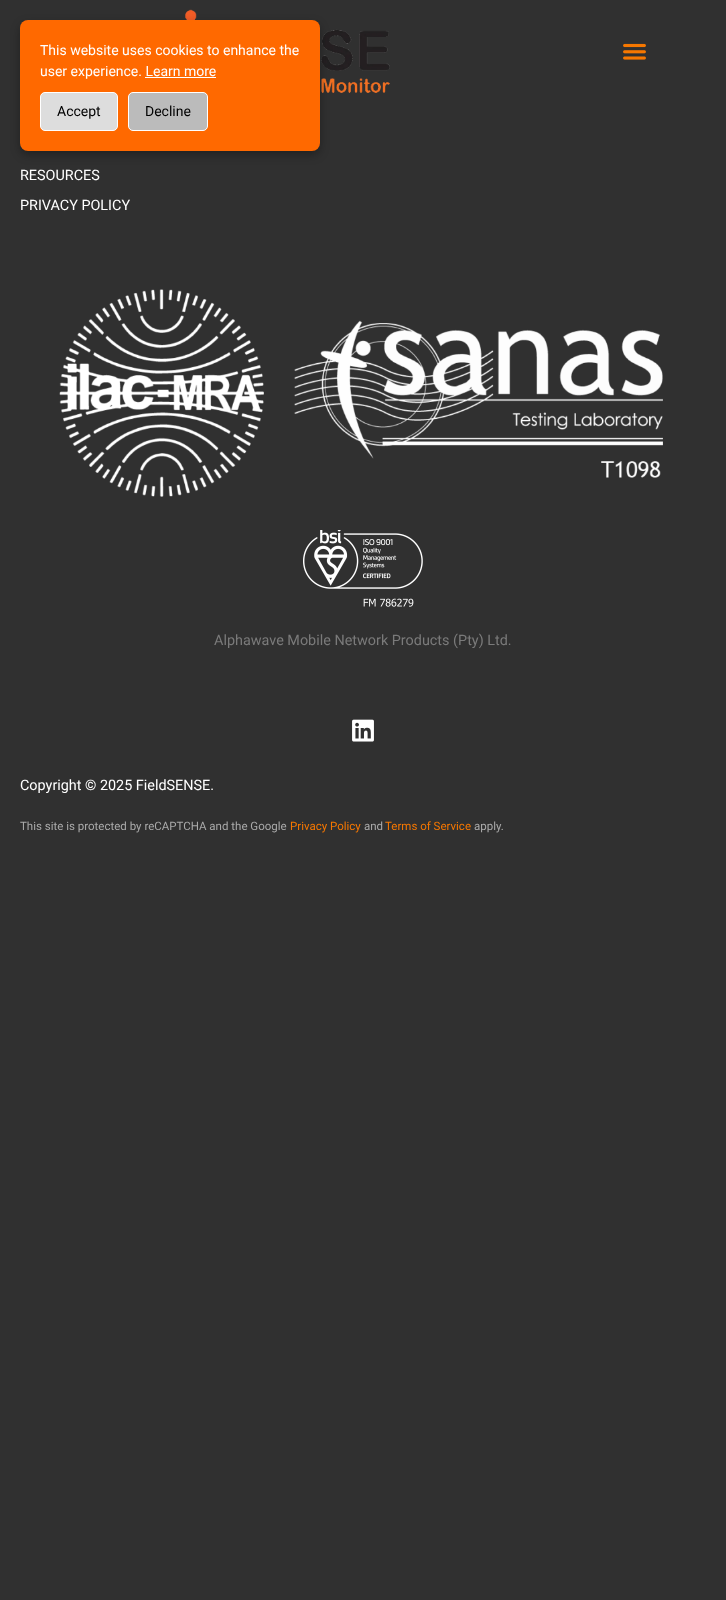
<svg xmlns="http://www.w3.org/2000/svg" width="726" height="1600">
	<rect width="100%" height="100%" fill="#303030" />
	<image x="185" y="9" width="205" height="84" href="assets/img1.png" />
	<rect x="20" y="24" width="300" height="131" rx="8" fill="#000000" fill-opacity="0.3" filter="blur(5px)" />
	<rect x="20" y="20" width="300" height="131" rx="8" fill="#FF6900" />
	<g font-family="Roboto" font-size="14" fill="#FFFFFF">
		<text x="40" y="55">This website uses cookies to enhance the</text>
		<text x="40" y="76">user experience. Learn more</text>
	</g>
	<rect x="145" y="77" width="71" height="1" fill="#FFFFFF" />
	<rect x="40.5" y="92.5" width="77" height="38" rx="4.5" fill="#DDDDDD" stroke="#FFFFFF" />
	<text x="57" y="116" font-family="Roboto" font-size="14" fill="#000000">Accept</text>
	<rect x="128.5" y="92.5" width="79" height="38" rx="4.5" fill="#BBBBBB" stroke="#FFFFFF" />
	<text x="145" y="116" font-family="Roboto" font-size="14" fill="#000000">Decline</text>
	<image x="623" y="43" width="23" height="17" href="assets/img2.png" />
	<g font-family="Roboto" font-size="14.4" fill="#FFFFFF">
		<text x="20" y="180">RESOURCES</text>
		<text x="20" y="210">PRIVACY POLICY</text>
	</g>
	<image x="59" y="289" width="604" height="208" href="assets/img3.png" />
	<image x="303" y="530" width="120" height="77" href="assets/img4.png" />
	<text x="214" y="645" font-family="Roboto" font-size="14.4" fill="#7A7A7A">Alphawave Mobile Network Products (Pty) Ltd.</text>
	<image x="352" y="719" width="22" height="23" href="assets/img5.png" />
	<text x="20" y="790" font-family="Roboto" font-size="14.4" fill="#FFFFFF">Copyright © 2025 FieldSENSE.</text>
	<text x="20" y="830" font-family="Roboto" font-size="11.5" fill="#AAAAAA">This site is protected by reCAPTCHA and the Google</text>
	<text x="290" y="830" font-family="Roboto" font-size="11.5" fill="#F67700">Privacy Policy</text>
	<text x="364" y="830" font-family="Roboto" font-size="11.5" fill="#AAAAAA">and</text>
	<text x="385" y="830" font-family="Roboto" font-size="11.5" fill="#F67700">Terms of Service</text>
	<text x="474" y="830" font-family="Roboto" font-size="11.5" fill="#AAAAAA">apply.</text>
</svg>
